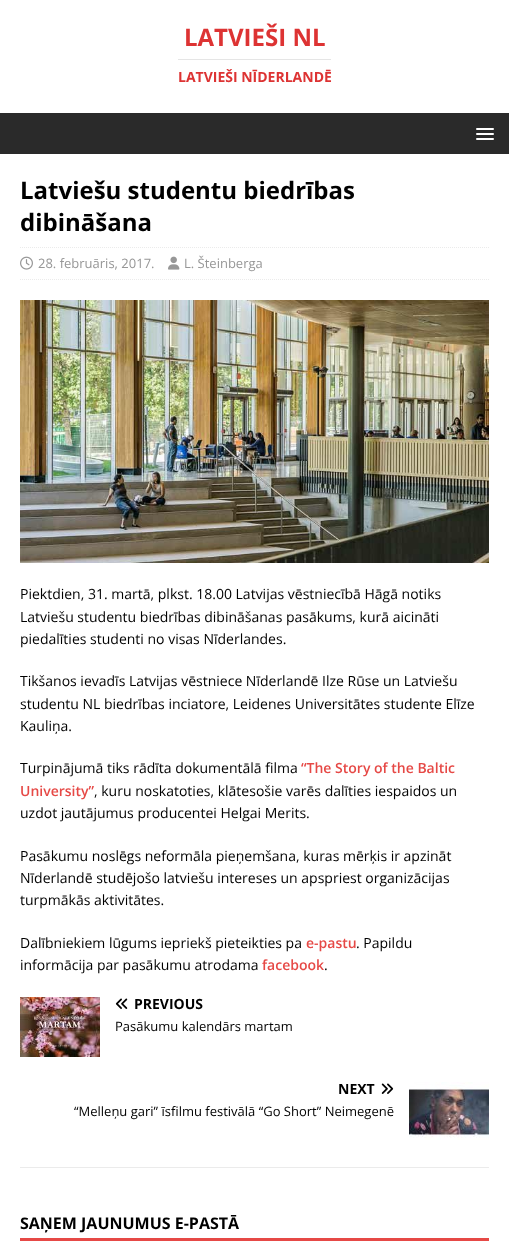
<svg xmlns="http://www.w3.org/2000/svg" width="509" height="1260">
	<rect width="100%" height="100%" fill="#FFFFFF" />
	<text x="184" y="46" font-family="Open Sans" font-size="24" font-weight="700" fill="#DD3333">LATVIEŠI NL</text>
	<rect x="178" y="59" width="153" height="1" fill="#E5E5E5" />
	<text x="178" y="82" font-family="Open Sans" font-size="14" font-weight="700" fill="#DD3333">LATVIEŠI NĪDERLANDĒ</text>
	<rect x="0" y="113" width="509" height="41" fill="#2A2A2A" />
	<rect x="476" y="128" width="18" height="2" rx="1" fill="#FFFFFF" />
	<rect x="476" y="133" width="18" height="2" rx="1" fill="#FFFFFF" />
	<rect x="476" y="138" width="18" height="2" rx="1" fill="#FFFFFF" />
	<g font-family="Open Sans" font-size="24" font-weight="700" fill="#000000">
		<text x="20" y="199">Latviešu studentu biedrības</text>
		<text x="20" y="231">dibināšana</text>
	</g>
	<path d="M20 247.5H489" fill="none" stroke="#EBEBEB" stroke-dasharray="1 1" />
	<path d="M20 279.5H489" fill="none" stroke="#EBEBEB" stroke-dasharray="1 1" />
	<image x="20" y="256" width="13" height="14" href="assets/img1.png" />
	<text x="38" y="268" font-family="Open Sans" font-size="13" fill="#979797">28. februāris, 2017.</text>
	<image x="168" y="256" width="12" height="14" href="assets/img2.png" />
	<text x="184" y="268" font-family="Open Sans" font-size="13" fill="#979797">L. Šteinberga</text>
	<image x="20" y="300" width="469" height="263" href="assets/img3.png" />
	<g font-family="Open Sans" font-size="14" fill="#000000">
		<text x="20" y="599">Piektdien, 31. martā, plkst. 18.00 Latvijas vēstniecībā Hāgā notiks</text>
		<text x="20" y="622">Latviešu studentu biedrības dibināšanas pasākums, kurā aicināti</text>
		<text x="20" y="644">piedalīties studenti no visas Nīderlandes.</text>
		<text x="20" y="686">Tikšanos ievadīs Latvijas vēstniece Nīderlandē Ilze Rūse un Latviešu</text>
		<text x="20" y="709">studentu NL biedrības inciatore, Leidenes Universitātes studente Elīze</text>
		<text x="20" y="731">Kauliņa.</text>
		<text x="20" y="773">Turpinājumā tiks rādīta dokumentālā filma</text>
	</g>
	<g font-family="Open Sans" font-size="14" font-weight="600" fill="#E64946">
		<text x="301" y="773">“The Story of the Baltic</text>
		<text x="20" y="796">University”</text>
	</g>
	<g font-family="Open Sans" font-size="14" fill="#000000">
		<text x="94" y="796">, kuru noskatoties, klātesošie varēs dalīties iespaidos un</text>
		<text x="20" y="818">uzdot jautājumus producentei Helgai Merits.</text>
		<text x="20" y="861">Pasākumu noslēgs neformāla pieņemšana, kuras mērķis ir apzināt</text>
		<text x="20" y="883">Nīderlandē studējošo latviešu intereses un apspriest organizācijas</text>
		<text x="20" y="905">turpmākās aktivitātes.</text>
		<text x="20" y="948">Dalībniekiem lūgums iepriekš pieteikties pa</text>
	</g>
	<text x="306" y="948" font-family="Open Sans" font-size="14" font-weight="600" fill="#E64946">e-pastu</text>
	<g font-family="Open Sans" font-size="14" fill="#000000">
		<text x="356" y="948">. Papildu</text>
		<text x="20" y="970">informācija par pasākumu atrodama</text>
	</g>
	<text x="262" y="970" font-family="Open Sans" font-size="14" font-weight="600" fill="#E64946">facebook</text>
	<text x="324" y="970" font-family="Open Sans" font-size="14" fill="#000000">.</text>
	<rect x="20" y="1167" width="469" height="1" fill="#EBEBEB" />
	<image x="20" y="997" width="80" height="60" href="assets/img4.png" />
	<image x="115" y="998" width="13" height="11" href="assets/img5.png" />
	<text x="134" y="1009" font-family="Open Sans" font-size="14" font-weight="700" fill="#000000">PREVIOUS</text>
	<text x="115" y="1031" font-family="Open Sans" font-size="13" fill="#000000">Pasākumu kalendārs martam</text>
	<text x="338" y="1094" font-family="Open Sans" font-size="14" font-weight="700" fill="#000000">NEXT</text>
	<image x="381" y="1083" width="13" height="11" href="assets/img6.png" />
	<image x="409" y="1082" width="80" height="58" href="assets/img7.png" />
	<text x="74" y="1116" font-family="Open Sans" font-size="13" fill="#000000">“Melleņu gari” īsfilmu festivālā “Go Short” Neimegenē</text>
	<rect x="20" y="1238" width="469" height="3" fill="#E64946" />
	<text x="20" y="1229" font-family="Open Sans" font-size="16" font-weight="700" fill="#000000">SAŅEM JAUNUMUS E-PASTĀ</text>
</svg>
